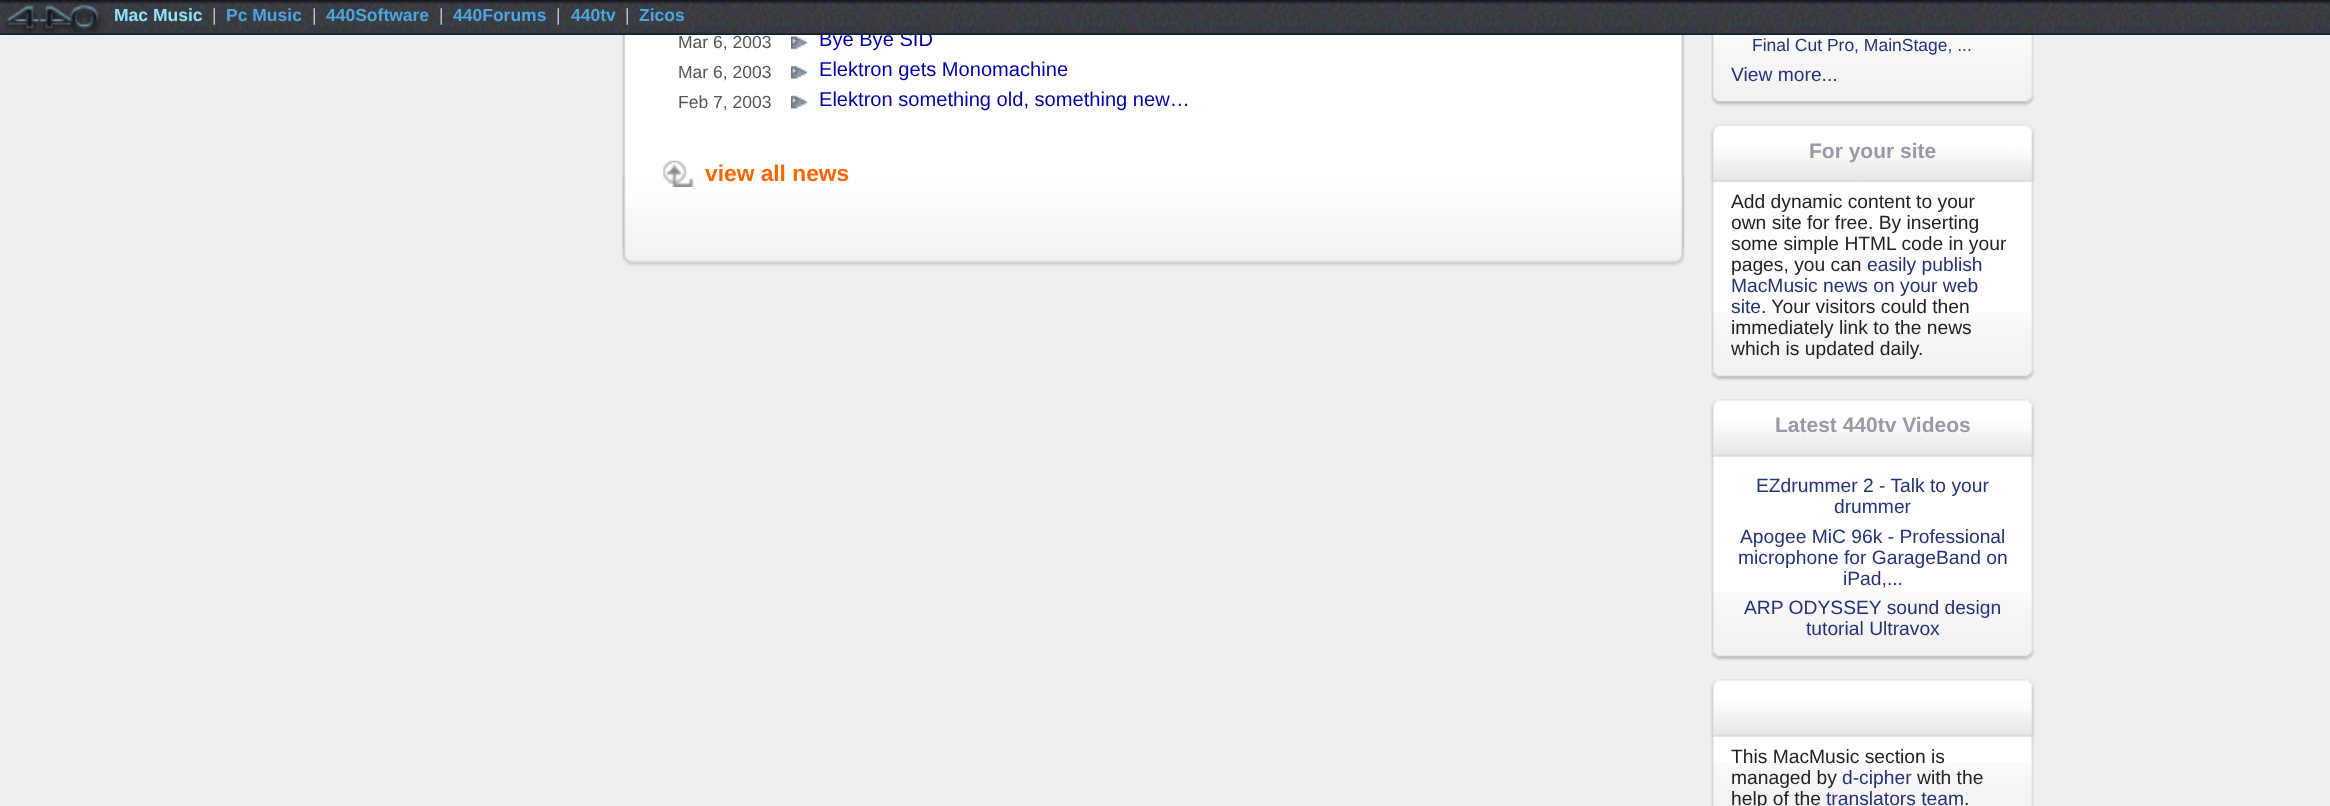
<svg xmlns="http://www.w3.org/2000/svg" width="2330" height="806">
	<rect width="100%" height="100%" fill="#EFEFEF" />
	<image x="622" y="35" width="1063" height="214" href="assets/img3.png" />
	<text x="819" y="46" font-family="Liberation Sans" font-size="20.1" fill="#0000AA">Bye Bye SID</text>
	<image x="0" y="0" width="2330" height="35" href="assets/img1.png" />
	<image x="0" y="0" width="106" height="34" href="assets/img2.png" />
	<text x="114" y="21" font-family="Liberation Sans" font-size="17.5" font-weight="700" fill="#8EE4FF">Mac Music</text>
	<text x="212" y="21" font-family="Liberation Sans" font-size="17.5" fill="#B7C3D1">|</text>
	<text x="226" y="21" font-family="Liberation Sans" font-size="17.5" font-weight="700" fill="#4EA4DE">Pc Music</text>
	<text x="312" y="21" font-family="Liberation Sans" font-size="17.5" fill="#B7C3D1">|</text>
	<text x="326" y="21" font-family="Liberation Sans" font-size="17.5" font-weight="700" fill="#4EA4DE">440Software</text>
	<text x="439" y="21" font-family="Liberation Sans" font-size="17.5" fill="#B7C3D1">|</text>
	<text x="453" y="21" font-family="Liberation Sans" font-size="17.5" font-weight="700" fill="#4EA4DE">440Forums</text>
	<text x="556" y="21" font-family="Liberation Sans" font-size="17.5" fill="#B7C3D1">|</text>
	<text x="571" y="21" font-family="Liberation Sans" font-size="17.5" font-weight="700" fill="#4EA4DE">440tv</text>
	<text x="625" y="21" font-family="Liberation Sans" font-size="17.5" fill="#B7C3D1">|</text>
	<text x="639" y="21" font-family="Liberation Sans" font-size="17.5" font-weight="700" fill="#4EA4DE">Zicos</text>
	<text x="678" y="48" font-family="Liberation Sans" font-size="17.5" fill="#555555">Mar 6, 2003</text>
	<image x="791" y="36" width="17" height="14" href="assets/img4.png" />
	<text x="678" y="78" font-family="Liberation Sans" font-size="17.5" fill="#555555">Mar 6, 2003</text>
	<image x="791" y="65" width="17" height="14" href="assets/img5.png" />
	<text x="819" y="76" font-family="Liberation Sans" font-size="20.1" fill="#0000AA">Elektron gets Monomachine</text>
	<text x="678" y="108" font-family="Liberation Sans" font-size="17.5" fill="#555555">Feb 7, 2003</text>
	<image x="791" y="95" width="17" height="14" href="assets/img6.png" />
	<text x="819" y="106" font-family="Liberation Sans" font-size="20.1" fill="#0000AA">Elektron something old, something new…</text>
	<image x="622" y="176" width="1063" height="90" href="assets/img8.png" />
	<image x="663" y="160" width="31" height="27" href="assets/img7.png" />
	<text x="705" y="181" font-family="Liberation Sans" font-size="22.75" font-weight="700" fill="#FF6600">view all news</text>
	<image x="1710" y="37" width="325" height="70" href="assets/img9.png" />
	<image x="1711" y="35" width="323" height="2" href="assets/img10.png" />
	<text x="1752" y="51" font-family="Liberation Sans" font-size="17.5" fill="#223377">Final Cut Pro, MainStage, ...</text>
	<text x="1731" y="81" font-family="Liberation Sans" font-size="19.25" fill="#223377">View more...</text>
	<image x="1711" y="181" width="323" height="131" href="assets/img12.png" />
	<image x="1710" y="124" width="325" height="58" href="assets/img11.png" />
	<text x="1809" y="158" font-family="Liberation Sans" font-size="21" font-weight="700" fill="#9999AA">For your site</text>
	<g font-family="Liberation Sans" font-size="19.25" fill="#222222">
		<text x="1731" y="208">Add dynamic content to your</text>
		<text x="1731" y="229">own site for free. By inserting</text>
		<text x="1731" y="250">some simple HTML code in your</text>
		<text x="1731" y="271">pages, you can</text>
	</g>
	<g font-family="Liberation Sans" font-size="19.25" fill="#223377">
		<text x="1867" y="271">easily publish</text>
		<text x="1731" y="292">MacMusic news on your web</text>
	</g>
	<image x="1710" y="312" width="325" height="69" href="assets/img13.png" />
	<text x="1731" y="313" font-family="Liberation Sans" font-size="19.25" fill="#223377">site</text>
	<g font-family="Liberation Sans" font-size="19.25" fill="#222222">
		<text x="1761" y="313">. Your visitors could then</text>
		<text x="1731" y="334">immediately link to the news</text>
		<text x="1731" y="355">which is updated daily.</text>
	</g>
	<image x="1711" y="456" width="323" height="136" href="assets/img15.png" />
	<image x="1710" y="399" width="325" height="58" href="assets/img14.png" />
	<text x="1775" y="432" font-family="Liberation Sans" font-size="21" font-weight="700" fill="#9999AA">Latest 440tv Videos</text>
	<g font-family="Liberation Sans" font-size="19.25" fill="#223377">
		<text x="1756" y="492">EZdrummer 2 - Talk to your</text>
		<text x="1834" y="513">drummer</text>
		<text x="1740" y="543">Apogee MiC 96k - Professional</text>
		<text x="1738" y="564">microphone for GarageBand on</text>
		<text x="1843" y="585">iPad,...</text>
	</g>
	<image x="1710" y="592" width="325" height="69" href="assets/img13.png" />
	<g font-family="Liberation Sans" font-size="19.25" fill="#223377">
		<text x="1744" y="614">ARP ODYSSEY sound design</text>
		<text x="1806" y="635">tutorial Ultravox</text>
	</g>
	<image x="1711" y="736" width="323" height="70" href="assets/img16.png" />
	<image x="1710" y="679" width="325" height="58" href="assets/img14.png" />
	<image x="1713" y="762" width="319" height="44" href="assets/img17.png" />
	<g font-family="Liberation Sans" font-size="19.25" fill="#222222">
		<text x="1731" y="763">This MacMusic section is</text>
		<text x="1731" y="784">managed by</text>
	</g>
	<text x="1842" y="784" font-family="Liberation Sans" font-size="19.25" fill="#223377">d-cipher</text>
	<g font-family="Liberation Sans" font-size="19.25" fill="#222222">
		<text x="1917" y="784">with the</text>
		<text x="1731" y="805">help of the</text>
	</g>
	<text x="1826" y="805" font-family="Liberation Sans" font-size="19.25" fill="#223377">translators team</text>
	<text x="1964" y="805" font-family="Liberation Sans" font-size="19.25" fill="#222222">.</text>
</svg>
